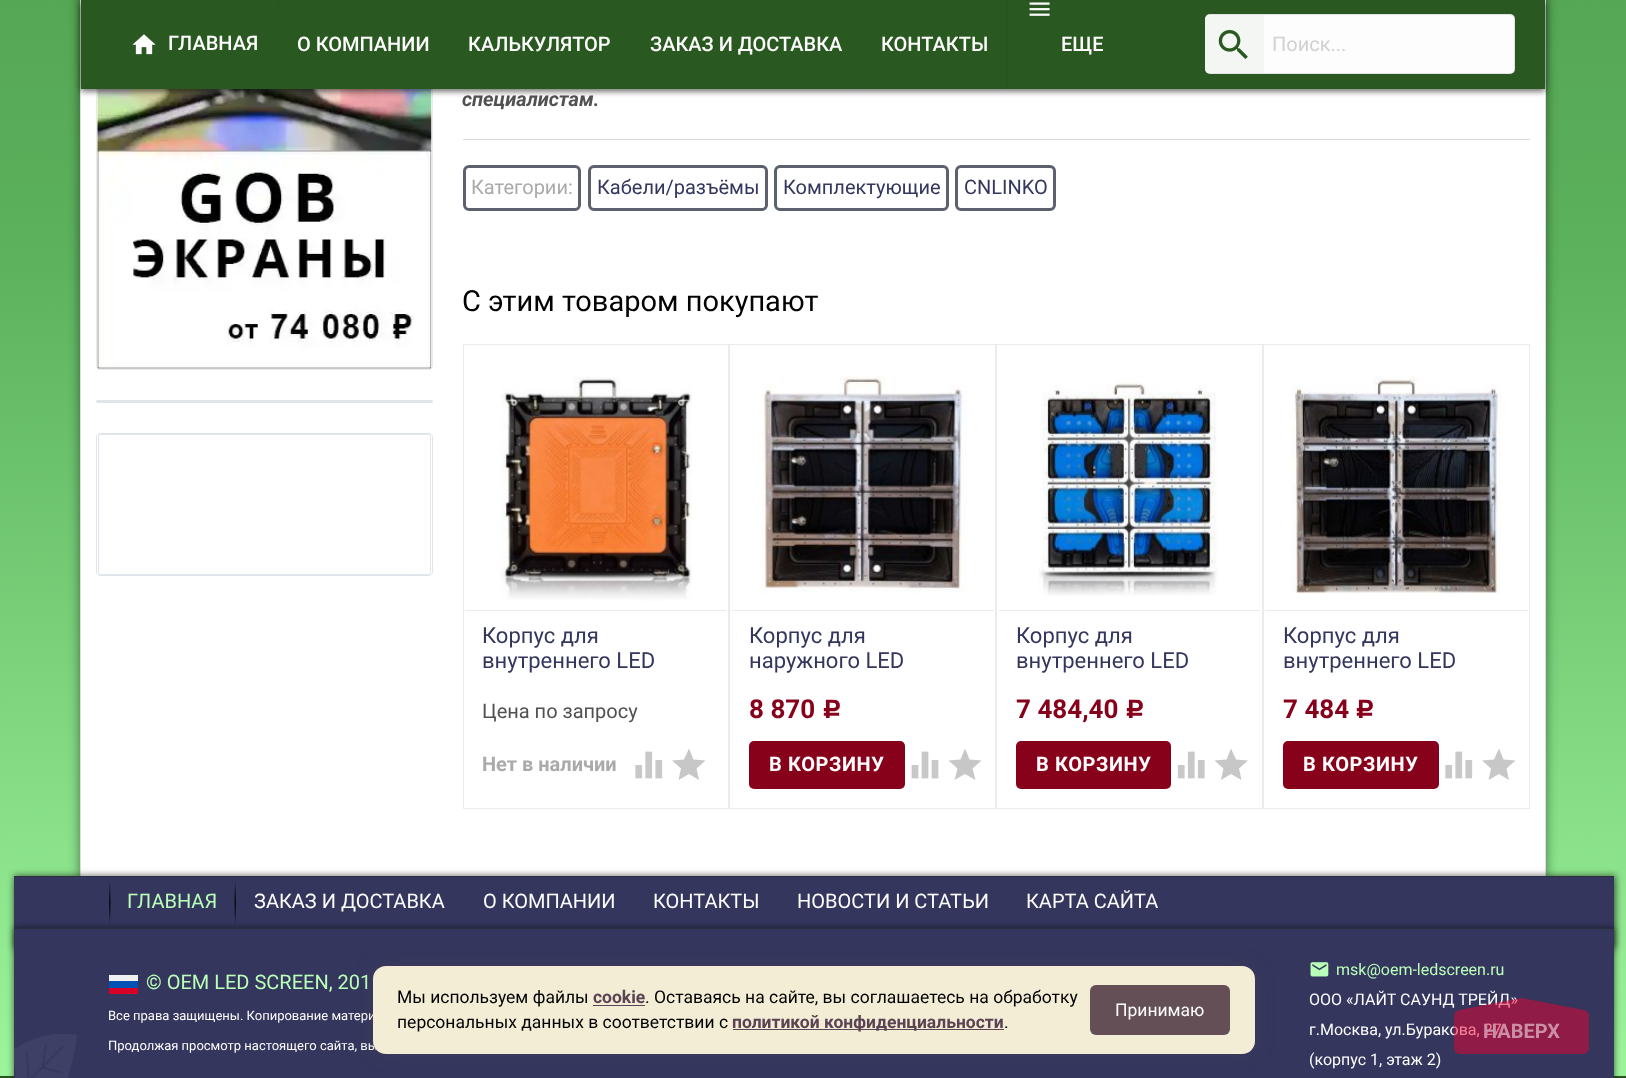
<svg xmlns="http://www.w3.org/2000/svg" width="1626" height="1078">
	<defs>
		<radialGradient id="g1" gradientUnits="userSpaceOnUse" cx="0" cy="0" r="1" gradientTransform="matrix(2.5 0 0 23 236 903)"><stop offset="0" stop-color="#000000" stop-opacity="0.98" /><stop offset="1" stop-color="#000000" stop-opacity="0" /></radialGradient>
		<radialGradient id="g2" gradientUnits="userSpaceOnUse" cx="0" cy="0" r="1" gradientTransform="matrix(2.5 0 0 23 109 903)"><stop offset="0" stop-color="#000000" stop-opacity="0.98" /><stop offset="1" stop-color="#000000" stop-opacity="0" /></radialGradient>
	</defs>
	<rect width="100%" height="100%" fill="#FFFFFF" />
	<image x="0" y="0" width="1626" height="1078" href="assets/img1.png" />
	<rect x="80" y="-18" width="1466" height="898" fill="#000000" fill-opacity="0.48" filter="blur(6px)" />
	<rect x="81" y="89" width="1464" height="787" fill="#FFFFFF" />
	<rect x="80.5" y="-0.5" width="1465" height="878" fill="none" stroke="#DDDDDD" />
	<rect x="98.5" y="-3.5" width="332" height="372" rx="2" fill="none" stroke="#E1E6EB" />
	<path d="M101-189C98-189 96-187 96-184V365C96 368 98 370 101 370H428C431 370 433 368 433 365V-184C433-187 431-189 428-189ZM100-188C98-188 97-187 97-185V366C97 368 98 369 100 369H429C431 369 432 368 432 366V-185C432-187 431-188 429-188Z" fill="#EBEBEB" fill-rule="evenodd" />
	<image x="97" y="89" width="335" height="280" href="assets/img5.png" />
	<rect x="81" y="3" width="1464" height="88" fill="#000000" fill-opacity="0.5" filter="blur(3px)" />
	<rect x="81" y="3" width="1464" height="88" fill="#191717" fill-opacity="0.2" filter="blur(3px)" />
	<rect x="81" y="0" width="1464" height="89" fill="#2A5821" />
	<image x="132" y="34" width="24" height="21" href="assets/img2.png" />
	<text x="168" y="50" font-family="Roboto" font-size="20" font-weight="500" fill="#FDFDFD">ГЛАВНАЯ</text>
	<path d="M278 0H449V1H279Z" fill="#2B5423" />
	<path d="M278 89V0L279 1V89Z" fill="#2B5423" />
	<text x="297" y="51" font-family="Roboto" font-size="20" font-weight="500" fill="#FDFDFD">О КОМПАНИИ</text>
	<path d="M449 0H630V1H450Z" fill="#2B5423" />
	<path d="M449 89V0L450 1V89Z" fill="#2B5423" />
	<text x="468" y="51" font-family="Roboto" font-size="20" font-weight="500" fill="#FDFDFD">КАЛЬКУЛЯТОР</text>
	<path d="M630 0H861V1H631Z" fill="#2B5423" />
	<path d="M630 89V0L631 1V89Z" fill="#2B5423" />
	<text x="650" y="51" font-family="Roboto" font-size="20" font-weight="500" fill="#FDFDFD">ЗАКАЗ И ДОСТАВКА</text>
	<path d="M861 0H1006V1H862Z" fill="#2B5423" />
	<path d="M861 89V0L862 1V89Z" fill="#2B5423" />
	<text x="881" y="51" font-family="Roboto" font-size="20" font-weight="500" fill="#FDFDFD">КОНТАКТЫ</text>
	<path d="M1006 0H1122V1H1008Z" fill="#2B5423" />
	<path d="M1006 89V0L1008 1V89Z" fill="#2B5423" />
	<image x="1029" y="2" width="21" height="14" href="assets/img3.png" />
	<text x="1061" y="51" font-family="Roboto" font-size="20" font-weight="500" fill="#FDFDFD">ЕЩЕ</text>
	<rect x="1205" y="14" width="310" height="60" rx="5" fill="#FDFDFD" />
	<rect x="1205.5" y="14.5" width="309" height="59" rx="4.5" fill="none" stroke="#333333" stroke-opacity="0.12" />
	<path d="M1210 15H1264V73H1210C1207 73 1205 71 1205 68V20C1205 17 1207 15 1210 15Z" fill="#F4F6F4" />
	<image x="1218" y="30" width="30" height="29" href="assets/img4.png" />
	<text x="1272" y="51" font-family="Roboto" font-size="20" fill="#D1D1D1">Поиск...</text>
	<rect x="96" y="400" width="337" height="3" rx="1.5" fill="#E0E5EB" />
	<rect x="98.5" y="434.5" width="332" height="140" rx="2" fill="none" stroke="#E1E6EB" />
	<path d="M101 433C98 433 96 435 96 438V571C96 574 98 576 101 576H428C431 576 433 574 433 571V438C433 435 431 433 428 433ZM100 434C98 434 97 435 97 437V572C97 574 98 575 100 575H429C431 575 432 574 432 572V437C432 435 431 434 429 434Z" fill="#E0E5EB" fill-rule="evenodd" />
	<text x="462" y="106" font-family="Roboto" font-size="20" font-weight="700" font-style="italic" fill="#515151">специалистам.</text>
	<rect x="463" y="139" width="1067" height="1" fill="#D9D9D9" />
	<rect x="464.5" y="166.5" width="115" height="43" rx="4.5" fill="none" stroke="#5D616D" stroke-width="3" />
	<text x="471" y="194" font-family="Roboto" font-size="20" fill="#AAAAAA">Категории:</text>
	<rect x="589.5" y="166.5" width="177" height="43" rx="4.5" fill="none" stroke="#5D616D" stroke-width="3" />
	<text x="597" y="194" font-family="Roboto" font-size="20" fill="#34365D">Кабели/разъёмы</text>
	<rect x="775.5" y="166.5" width="172" height="43" rx="4.5" fill="none" stroke="#5D616D" stroke-width="3" />
	<text x="783" y="194" font-family="Roboto" font-size="20" fill="#34365D">Комплектующие</text>
	<rect x="956.5" y="166.5" width="98" height="43" rx="4.5" fill="none" stroke="#5D616D" stroke-width="3" />
	<text x="964" y="194" font-family="Roboto" font-size="20" fill="#34365D">CNLINKO</text>
	<text x="462" y="311" font-family="Roboto" font-size="29" fill="#010101">С этим товаром покупают</text>
	<rect x="463.5" y="344.5" width="265" height="464" fill="none" stroke="#EBEBEB" />
	<image x="500" y="376" width="192" height="225" href="assets/img6.png" />
	<rect x="465" y="610" width="261" height="1" fill="#EBEBEB" />
	<g font-family="Roboto" font-size="22" fill="#34365D">
		<text x="482" y="643">Корпус для</text>
		<text x="482" y="668">внутреннего LED</text>
	</g>
	<text x="482" y="718" font-family="Roboto" font-size="20" fill="#515151">Цена по запросу</text>
	<text x="482" y="771" font-family="Roboto" font-size="20" font-weight="700" fill="#AAAAAA">Нет в наличии</text>
	<image x="635" y="751" width="28" height="28" href="assets/img7.png" />
	<path d="M689 774L678.5 780L681 768.5L672 760.5L684 759.5L689 748.5L693.5 759.5L705.5 760.5L696.5 768.5L699 780Z" fill="#C7C7C7" />
	<rect x="729.5" y="344.5" width="266" height="464" fill="none" stroke="#EBEBEB" />
	<image x="761" y="376" width="206" height="217" href="assets/img8.png" />
	<rect x="731" y="610" width="263" height="1" fill="#EBEBEB" />
	<g font-family="Roboto" font-size="22" fill="#34365D">
		<text x="749" y="643">Корпус для</text>
		<text x="749" y="668">наружного LED</text>
	</g>
	<text x="749" y="718" font-family="Roboto" font-size="26" font-weight="700" fill="#87011A">8 870</text>
	<text x="822" y="718" font-family="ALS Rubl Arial" font-size="26" font-weight="700" fill="#87011A">Р</text>
	<rect x="749" y="741" width="156" height="48" rx="5" fill="#87011A" />
	<text x="769" y="771" font-family="Roboto" font-size="20" font-weight="700" letter-spacing="0.6" fill="#FDFDFD">В КОРЗИНУ</text>
	<image x="911" y="751" width="28" height="28" href="assets/img9.png" />
	<path d="M965 774L954.5 780L957.5 768.5L948.5 760.5L960.5 759.5L965 748.5L969.5 759.5L981.5 760.5L972.5 768.5L975.5 780Z" fill="#C7C7C7" />
	<rect x="996.5" y="344.5" width="266" height="464" fill="none" stroke="#EBEBEB" />
	<image x="1038" y="381" width="180" height="215" href="assets/img10.png" />
	<rect x="999" y="610" width="261" height="1" fill="#EBEBEB" />
	<g font-family="Roboto" font-size="22" fill="#34365D">
		<text x="1016" y="643">Корпус для</text>
		<text x="1016" y="668">внутреннего LED</text>
	</g>
	<text x="1016" y="718" font-family="Roboto" font-size="26" font-weight="700" fill="#87011A">7 484,40</text>
	<text x="1125" y="718" font-family="ALS Rubl Arial" font-size="26" font-weight="700" fill="#87011A">Р</text>
	<rect x="1016" y="741" width="155" height="48" rx="5" fill="#87011A" />
	<text x="1036" y="771" font-family="Roboto" font-size="20" font-weight="700" letter-spacing="0.6" fill="#FDFDFD">В КОРЗИНУ</text>
	<image x="1177" y="751" width="28" height="28" href="assets/img11.png" />
	<path d="M1231 774L1221 780L1223.5 768.5L1214.5 760.5L1226.5 759.5L1231 748.5L1236 759.5L1248 760.5L1239 768.5L1241.5 780Z" fill="#C7C7C7" />
	<rect x="1263.5" y="344.5" width="266" height="464" fill="none" stroke="#EBEBEB" />
	<image x="1291" y="376" width="210" height="218" href="assets/img12.png" />
	<rect x="1265" y="610" width="263" height="1" fill="#EBEBEB" />
	<g font-family="Roboto" font-size="22" fill="#34365D">
		<text x="1283" y="643">Корпус для</text>
		<text x="1283" y="668">внутреннего LED</text>
	</g>
	<text x="1283" y="718" font-family="Roboto" font-size="26" font-weight="700" fill="#87011A">7 484</text>
	<text x="1355" y="718" font-family="ALS Rubl Arial" font-size="26" font-weight="700" fill="#87011A">Р</text>
	<rect x="1283" y="741" width="156" height="48" rx="5" fill="#87011A" />
	<text x="1303" y="771" font-family="Roboto" font-size="20" font-weight="700" letter-spacing="0.6" fill="#FDFDFD">В КОРЗИНУ</text>
	<image x="1445" y="751" width="28" height="28" href="assets/img7.png" />
	<path d="M1499 774L1488.5 780L1491 768.5L1482 760.5L1494 759.5L1499 748.5L1503.5 759.5L1515.5 760.5L1506.5 768.5L1509 780Z" fill="#C7C7C7" />
	<rect x="14" y="875" width="1602" height="73" fill="#000000" fill-opacity="0.5" filter="blur(3px)" />
	<rect x="14" y="883" width="1600" height="70" fill="#191717" fill-opacity="0.2" filter="blur(3px)" />
	<rect x="14" y="877" width="1600" height="51" fill="#34365D" />
	<rect x="14" y="876" width="1600" height="1" fill="#2A2E3E" />
	<rect x="14" y="928" width="1600" height="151" fill="#000000" fill-opacity="0.5" filter="blur(3px)" />
	<rect x="14" y="930" width="1600" height="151" fill="#191717" fill-opacity="0.2" filter="blur(3px)" />
	<rect x="234" y="881" width="2" height="44" fill="url(#g1)" />
	<rect x="109" y="881" width="2" height="44" fill="url(#g2)" />
	<text x="127" y="908" font-family="Roboto" font-size="20" fill="#BAFFB8">ГЛАВНАЯ</text>
	<g font-family="Roboto" font-size="20" fill="#FDFDFD">
		<text x="254" y="908">ЗАКАЗ И ДОСТАВКА</text>
		<text x="483" y="908">О КОМПАНИИ</text>
		<text x="653" y="908">КОНТАКТЫ</text>
		<text x="797" y="908">НОВОСТИ И СТАТЬИ</text>
		<text x="1026" y="908">КАРТА САЙТА</text>
	</g>
	<rect x="14" y="929" width="1600" height="149" fill="#34365D" />
	<image x="14" y="1034" width="63" height="44" href="assets/img13.png" />
	<rect x="14" y="928" width="1600" height="1" fill="#2A2E3E" />
	<rect x="109" y="975" width="29" height="6" fill="#F0F0F0" />
	<text x="146" y="989" font-family="Roboto" font-size="20" fill="#BAFFB8">© OEM LED SCREEN, 201</text>
	<rect x="109" y="981" width="29" height="7" fill="#0052B4" />
	<rect x="109" y="988" width="29" height="6" fill="#D80027" />
	<g font-family="Roboto" font-size="13" fill="#FDFDFD">
		<text x="108" y="1020">Все права защищены. Копирование матери</text>
		<text x="108" y="1050">Продолжая просмотр настоящего сайта, вы</text>
	</g>
	<image x="1310" y="962" width="19" height="15" href="assets/img14.png" />
	<text x="1336" y="975" font-family="Roboto" font-size="16" fill="#BAFFB8">msk@oem-ledscreen.ru</text>
	<g font-family="Roboto" font-size="16" fill="#FDFDFD">
		<text x="1309" y="1005">ООО «ЛАЙТ САУНД ТРЕЙД»</text>
		<text x="1309" y="1035">г.Москва, ул.Буракова, 27</text>
		<text x="1309" y="1065">(корпус 1, этаж 2)</text>
	</g>
	<rect x="373" y="966" width="882" height="88" rx="13" fill="#654F56" fill-opacity="0.2" filter="blur(9.5px)" />
	<rect x="373" y="966" width="882" height="88" rx="13" fill="#F3EDD6" />
	<text x="397" y="1003" font-family="Roboto" font-size="17.5" fill="#010101">Мы используем файлы</text>
	<text x="593" y="1003" font-family="Roboto" font-size="17.5" font-weight="700" fill="#5A4352">cookie</text>
	<rect x="593" y="1005" width="52" height="1" fill="#5A4352" />
	<g font-family="Roboto" font-size="17.5" fill="#010101">
		<text x="645" y="1003">. Оставаясь на сайте, вы соглашаетесь на обработку</text>
		<text x="397" y="1028">персональных данных в соответствии с</text>
	</g>
	<rect x="733" y="1029" width="271" height="1" fill="#5A4352" />
	<text x="732" y="1028" font-family="Roboto" font-size="17.5" font-weight="700" fill="#5A4352">политикой конфиденциальности</text>
	<text x="1004" y="1028" font-family="Roboto" font-size="17.5" fill="#010101">.</text>
	<rect x="1090" y="985" width="140" height="50" rx="6" fill="#654F56" />
	<text x="1115" y="1016" font-family="Roboto" font-size="17.5" fill="#FDFDFD">Принимаю</text>
	<rect x="1454" y="1010" width="135" height="44" rx="6" fill="#EE0031" fill-opacity="0.5" />
	<path d="M1584 1010H1459L1521 998Z" fill="#EE0031" fill-opacity="0.5" />
	<text x="1483" y="1038" font-family="Roboto" font-size="20" font-weight="700" fill="#CA8FA4">НАВЕРХ</text>
</svg>
